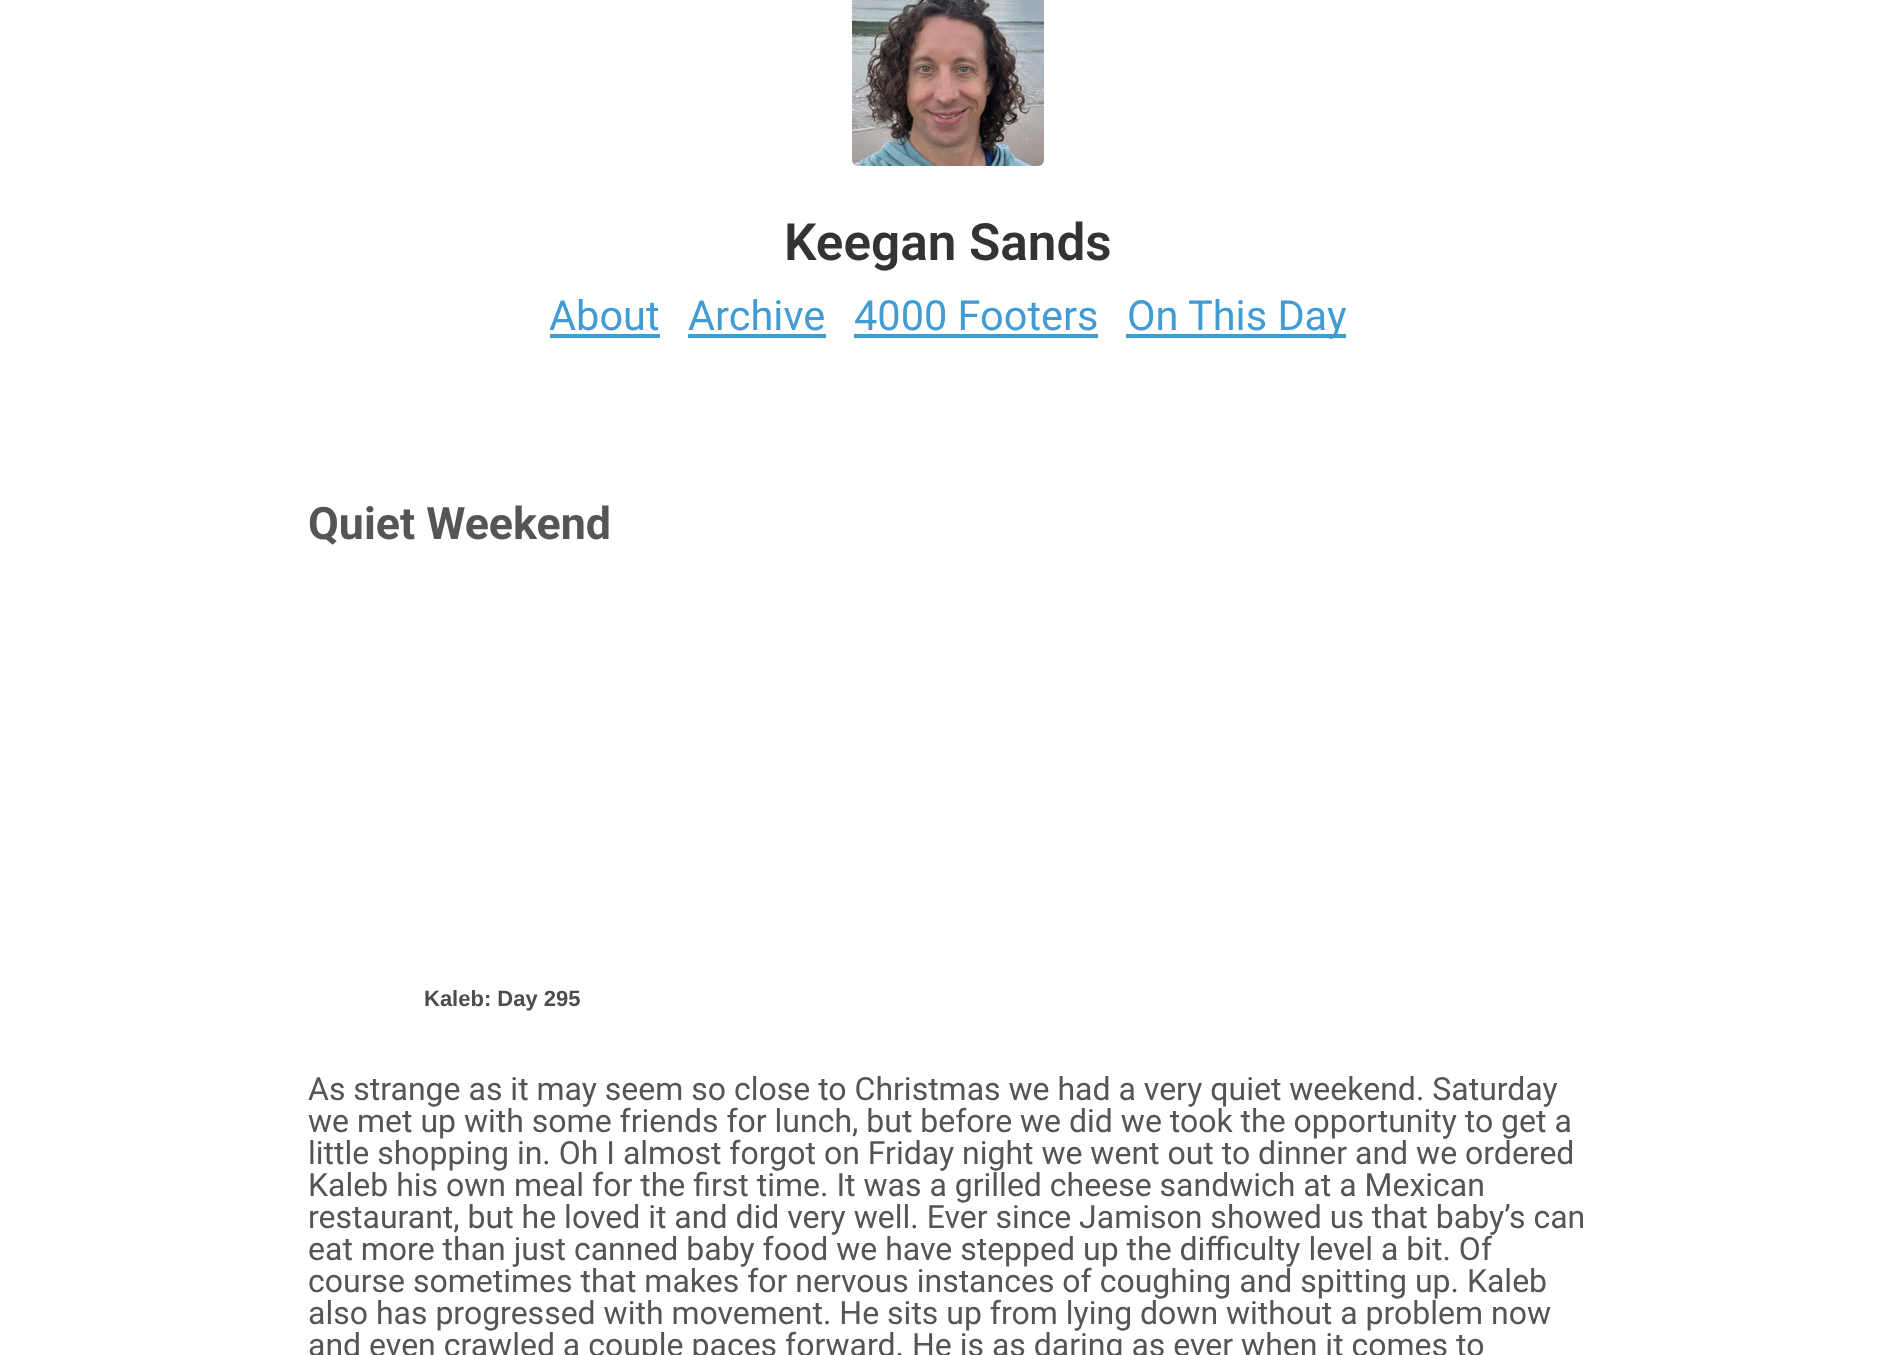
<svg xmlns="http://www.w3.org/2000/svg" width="1896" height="1355">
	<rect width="100%" height="100%" fill="#FFFFFF" />
	<image x="852" y="0" width="192" height="166" href="assets/img1.png" />
	<text x="784" y="260" font-family="Roboto" font-size="51.25" font-weight="600" fill="#333333">Keegan Sands</text>
	<text x="549" y="330" font-family="Roboto" font-size="41.5" fill="#429CD4">About</text>
	<rect x="550" y="334" width="110" height="4" fill="#429CD4" />
	<text x="688" y="330" font-family="Roboto" font-size="41.5" fill="#429CD4">Archive</text>
	<rect x="688" y="334" width="138" height="4" fill="#429CD4" />
	<text x="854" y="330" font-family="Roboto" font-size="41.5" fill="#429CD4">4000 Footers</text>
	<rect x="854" y="334" width="244" height="4" fill="#429CD4" />
	<rect x="1126" y="334" width="220" height="4" fill="#429CD4" />
	<text x="1127" y="330" font-family="Roboto" font-size="41.5" fill="#429CD4">On This Day</text>
	<text x="308" y="539" font-family="Roboto" font-size="44.75" font-weight="700" fill="#555555">Quiet Weekend</text>
	<text x="424" y="1006" font-family="Liberation Sans" font-size="22" font-weight="700" fill="#4D4D4D">Kaleb: Day 295</text>
	<g font-family="Roboto" font-size="32" fill="#555555">
		<text x="308" y="1100">As strange as it may seem so close to Christmas we had a very quiet weekend. Saturday</text>
		<text x="308" y="1132">we met up with some friends for lunch, but before we did we took the opportunity to get a</text>
		<text x="308" y="1164">little shopping in. Oh I almost forgot on Friday night we went out to dinner and we ordered</text>
		<text x="308" y="1196">Kaleb his own meal for the first time. It was a grilled cheese sandwich at a Mexican</text>
		<text x="308" y="1228">restaurant, but he loved it and did very well. Ever since Jamison showed us that baby’s can</text>
		<text x="308" y="1260">eat more than just canned baby food we have stepped up the difficulty level a bit. Of</text>
		<text x="308" y="1292">course sometimes that makes for nervous instances of coughing and spitting up. Kaleb</text>
		<text x="308" y="1324">also has progressed with movement. He sits up from lying down without a problem now</text>
		<text x="308" y="1356">and even crawled a couple paces forward. He is as daring as ever when it comes to</text>
	</g>
</svg>
